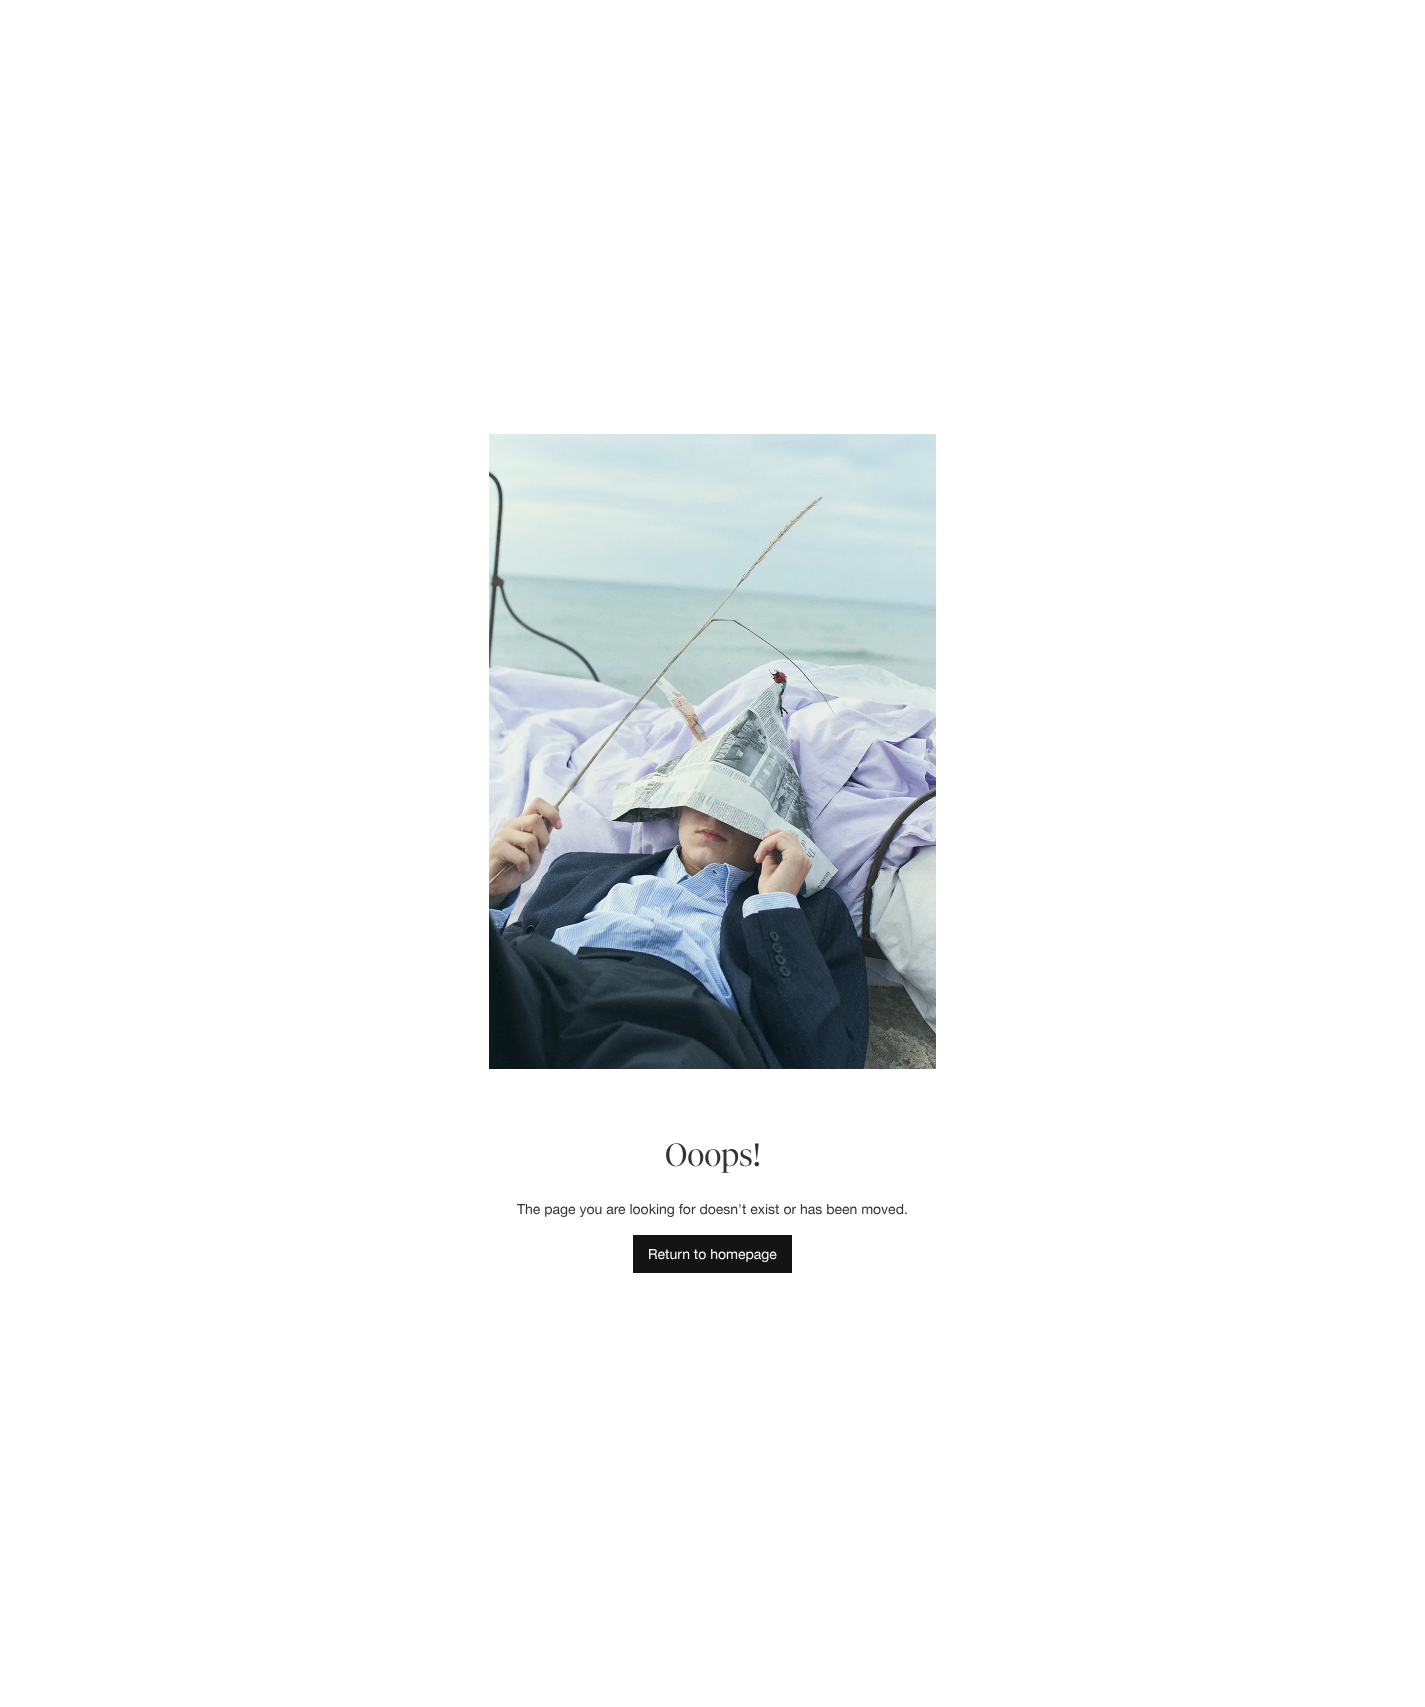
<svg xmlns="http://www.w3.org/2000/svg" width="1425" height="1707">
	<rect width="100%" height="100%" fill="#FFFFFF" />
	<image x="489" y="434" width="447" height="635" href="assets/img1.png" />
	<text x="665" y="1166" font-family="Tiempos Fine" font-size="32" font-weight="300" fill="#333333">Ooops!</text>
	<text x="517" y="1214" font-family="Helvetica Neue" font-size="14" fill="#333333">The page you are looking for doesn't exist or has been moved.</text>
	<rect x="633" y="1235" width="159" height="38" fill="#141414" />
	<text x="648" y="1259" font-family="Helvetica Neue" font-size="14" fill="#FFFFFF">Return to homepage</text>
</svg>
